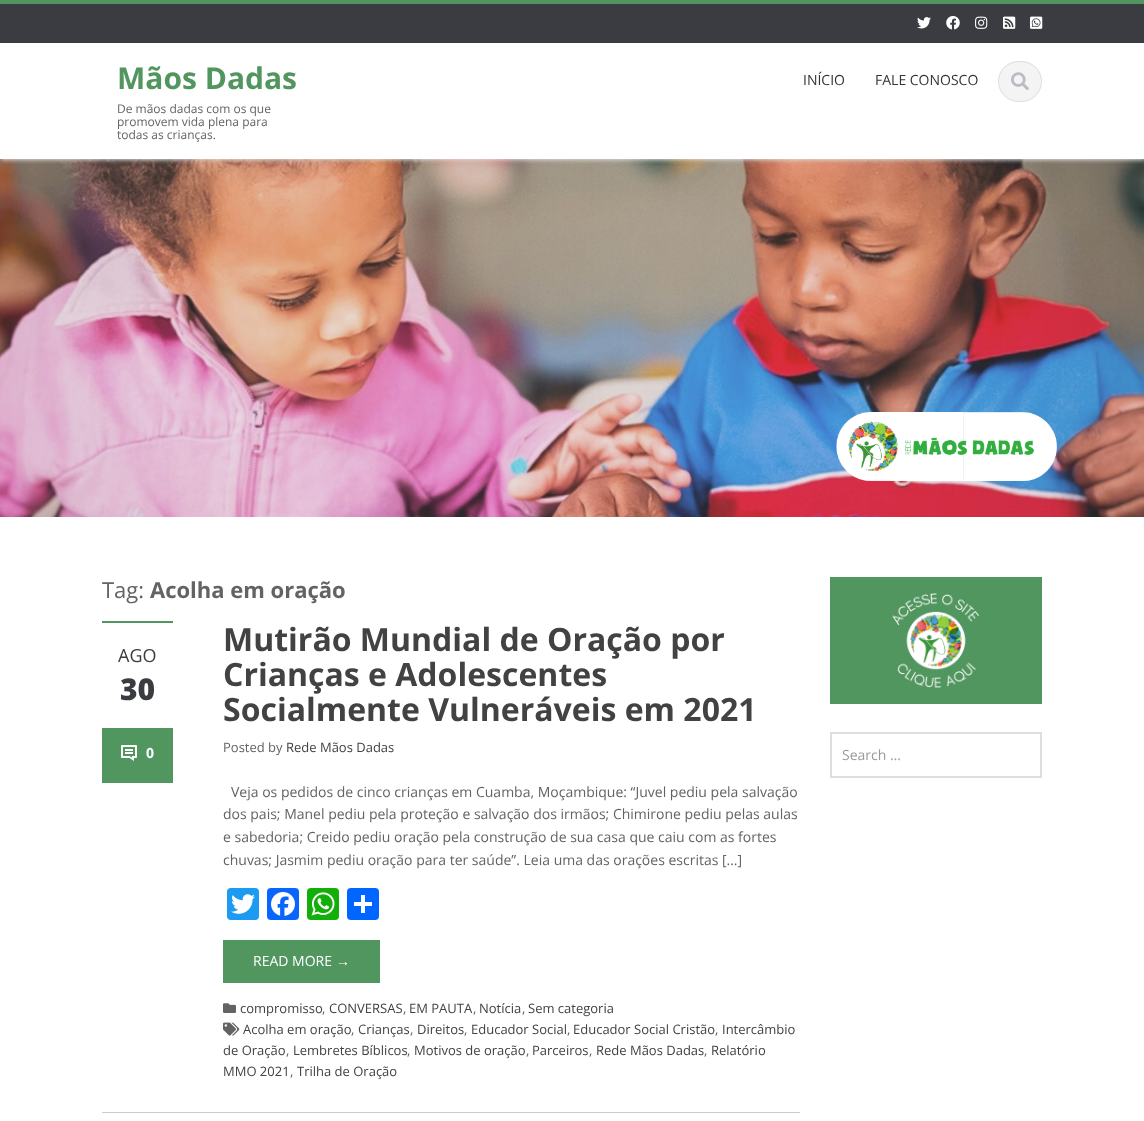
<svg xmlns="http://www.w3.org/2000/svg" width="1144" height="1121">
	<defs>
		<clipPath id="clip1"><rect x="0" y="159" width="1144" height="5" /></clipPath>
	</defs>
	<rect width="100%" height="100%" fill="#FFFFFF" />
	<image x="0" y="159" width="1144" height="358" href="assets/img7.png" />
	<g clip-path="url(#clip1)">
		<rect x="1" y="1" width="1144" height="159" fill="#DDDDDD" filter="blur(2px)" />
	</g>
	<rect x="0" y="4" width="1144" height="39" fill="#3A3C41" />
	<rect x="0" y="0" width="1144" height="4" fill="#52965F" />
	<image x="917" y="17" width="14" height="12" href="assets/img1.png" />
	<image x="946" y="16" width="14" height="14" href="assets/img2.png" />
	<image x="975" y="16" width="13" height="13" href="assets/img3.png" />
	<image x="1003" y="16" width="13" height="13" href="assets/img4.png" />
	<image x="1030" y="16" width="13" height="13" href="assets/img5.png" />
	<text x="117" y="89" font-family="Open Sans" font-size="30" font-weight="700" fill="#52965F">Mãos Dadas</text>
	<g font-family="Open Sans" font-size="12" fill="#636363">
		<text x="117" y="113">De mãos dadas com os que</text>
		<text x="117" y="126">promovem vida plena para</text>
		<text x="117" y="139">todas as crianças.</text>
	</g>
	<g font-family="Open Sans" font-size="14" fill="#333333">
		<text x="803" y="85">INÍCIO</text>
		<text x="875" y="85">FALE CONOSCO</text>
	</g>
	<rect x="998.5" y="61.5" width="43" height="40" rx="20" fill="#F4F4F4" stroke="#DDDDDD" />
	<image x="1011" y="72" width="18" height="19" href="assets/img6.png" />
	<text x="102" y="598" font-family="Open Sans" font-size="22" fill="#636363">Tag:</text>
	<text x="150" y="598" font-family="Open Sans" font-size="22" font-weight="700" fill="#636363">Acolha em oração</text>
	<rect x="102" y="1112" width="698" height="1" fill="#CCCCCC" />
	<rect x="102" y="621" width="71" height="2" fill="#52965F" />
	<text x="118" y="662" font-family="Open Sans" font-size="18" fill="#3A3C41">AGO</text>
	<text x="120" y="700" font-family="Open Sans" font-size="30" font-weight="800" fill="#3A3C41">30</text>
	<rect x="102" y="728" width="71" height="55" fill="#52965F" />
	<image x="121" y="745" width="16" height="16" href="assets/img8.png" />
	<text x="146" y="758" font-family="Open Sans" font-size="14" font-weight="700" fill="#FFFFFF">0</text>
	<g font-family="Open Sans" font-size="32" font-weight="700" fill="#424242">
		<text x="223" y="651">Mutirão Mundial de Oração por</text>
		<text x="223" y="686">Crianças e Adolescentes</text>
		<text x="223" y="721">Socialmente Vulneráveis em 2021</text>
	</g>
	<text x="223" y="752" font-family="Open Sans" font-size="13" fill="#636363">Posted by</text>
	<text x="286" y="752" font-family="Open Sans" font-size="13" fill="#424242">Rede Mãos Dadas</text>
	<g font-family="Open Sans" font-size="14" fill="#636363">
		<text x="231" y="797">Veja os pedidos de cinco crianças em Cuamba, Moçambique: “Juvel pediu pela salvação</text>
		<text x="223" y="819">dos pais; Manel pediu pela proteção e salvação dos irmãos; Chimirone pediu pelas aulas</text>
		<text x="223" y="842">e sabedoria; Creido pediu oração pela construção de sua casa que caiu com as fortes</text>
		<text x="223" y="865">chuvas; Jasmim pediu oração para ter saúde”. Leia uma das orações escritas […]</text>
	</g>
	<rect x="227" y="888" width="32" height="32" rx="4" fill="#1D9BF0" />
	<image x="231" y="894" width="24" height="20" href="assets/img9.png" />
	<rect x="267" y="888" width="32" height="32" rx="4" fill="#0866FF" />
	<image x="271" y="892" width="24" height="24" href="assets/img10.png" />
	<rect x="307" y="888" width="32" height="32" rx="4" fill="#12AF0A" />
	<image x="311" y="892" width="24" height="24" href="assets/img11.png" />
	<rect x="347" y="888" width="32" height="32" rx="4" fill="#0166FF" />
	<rect x="361" y="895" width="4" height="18" fill="#FFFFFF" />
	<rect x="354" y="902" width="18" height="4" fill="#FFFFFF" />
	<rect x="223" y="940" width="157" height="43" fill="#52965F" />
	<text x="253" y="966" font-family="Open Sans" font-size="14" fill="#FFFFFF">READ MORE</text>
	<text x="336" y="966" font-family="Liberation Sans" font-size="14" fill="#FFFFFF">→</text>
	<image x="223" y="1003" width="13" height="10" href="assets/img12.png" />
	<text x="240" y="1013" font-family="Open Sans" font-size="13" fill="#424242">compromisso</text>
	<text x="322" y="1013" font-family="Open Sans" font-size="13" fill="#636363">,</text>
	<text x="329" y="1013" font-family="Open Sans" font-size="13" fill="#424242">CONVERSAS</text>
	<text x="403" y="1013" font-family="Open Sans" font-size="13" fill="#636363">,</text>
	<text x="409" y="1013" font-family="Open Sans" font-size="13" fill="#424242">EM PAUTA</text>
	<text x="473" y="1013" font-family="Open Sans" font-size="13" fill="#636363">,</text>
	<text x="479" y="1013" font-family="Open Sans" font-size="13" fill="#424242">Notícia</text>
	<text x="522" y="1013" font-family="Open Sans" font-size="13" fill="#636363">,</text>
	<text x="528" y="1013" font-family="Open Sans" font-size="13" fill="#424242">Sem categoria</text>
	<image x="223" y="1022" width="17" height="14" href="assets/img13.png" />
	<text x="243" y="1034" font-family="Open Sans" font-size="13" fill="#424242">Acolha em oração</text>
	<text x="351" y="1034" font-family="Open Sans" font-size="13" fill="#636363">,</text>
	<text x="358" y="1034" font-family="Open Sans" font-size="13" fill="#424242">Crianças</text>
	<text x="410" y="1034" font-family="Open Sans" font-size="13" fill="#636363">,</text>
	<text x="417" y="1034" font-family="Open Sans" font-size="13" fill="#424242">Direitos</text>
	<text x="464" y="1034" font-family="Open Sans" font-size="13" fill="#636363">,</text>
	<text x="471" y="1034" font-family="Open Sans" font-size="13" fill="#424242">Educador Social</text>
	<text x="567" y="1034" font-family="Open Sans" font-size="13" fill="#636363">,</text>
	<text x="573" y="1034" font-family="Open Sans" font-size="13" fill="#424242">Educador Social Cristão</text>
	<text x="715" y="1034" font-family="Open Sans" font-size="13" fill="#636363">,</text>
	<g font-family="Open Sans" font-size="13" fill="#424242">
		<text x="722" y="1034">Intercâmbio</text>
		<text x="223" y="1055">de Oração</text>
	</g>
	<text x="286" y="1055" font-family="Open Sans" font-size="13" fill="#636363">,</text>
	<text x="293" y="1055" font-family="Open Sans" font-size="13" fill="#424242">Lembretes Bíblicos</text>
	<text x="407" y="1055" font-family="Open Sans" font-size="13" fill="#636363">,</text>
	<text x="414" y="1055" font-family="Open Sans" font-size="13" fill="#424242">Motivos de oração</text>
	<text x="526" y="1055" font-family="Open Sans" font-size="13" fill="#636363">,</text>
	<text x="532" y="1055" font-family="Open Sans" font-size="13" fill="#424242">Parceiros</text>
	<text x="589" y="1055" font-family="Open Sans" font-size="13" fill="#636363">,</text>
	<text x="596" y="1055" font-family="Open Sans" font-size="13" fill="#424242">Rede Mãos Dadas</text>
	<text x="704" y="1055" font-family="Open Sans" font-size="13" fill="#636363">,</text>
	<g font-family="Open Sans" font-size="13" fill="#424242">
		<text x="711" y="1055">Relatório</text>
		<text x="223" y="1076">MMO 2021</text>
	</g>
	<text x="290" y="1076" font-family="Open Sans" font-size="13" fill="#636363">,</text>
	<text x="297" y="1076" font-family="Open Sans" font-size="13" fill="#424242">Trilha de Oração</text>
	<image x="830" y="577" width="212" height="127" href="assets/img14.png" />
	<rect x="831" y="733" width="210" height="44" fill="none" stroke="#DCDEE4" stroke-width="2" />
	<text x="842" y="760" font-family="Open Sans" font-size="14" fill="#999999">Search …</text>
</svg>
